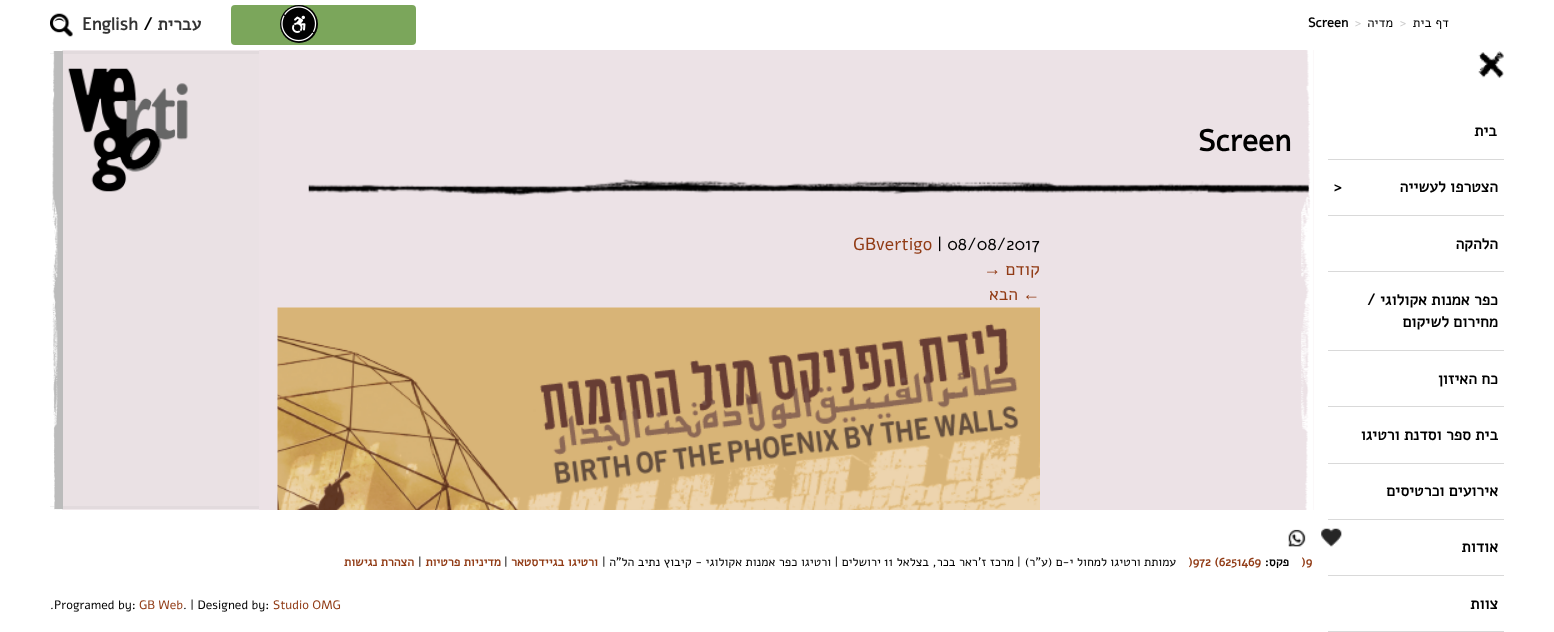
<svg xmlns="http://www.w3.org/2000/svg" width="1554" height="632">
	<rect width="100%" height="100%" fill="#BBBBBB" />
	<rect x="0" y="0" width="1554" height="50" fill="#FFFFFF" />
	<rect x="231" y="5" width="185" height="40" rx="4" fill="#7BA65B" />
	<circle cx="299" cy="24" r="19" fill="#020202" />
	<image x="281" y="6" width="36" height="36" href="assets/img1.png" />
	<text x="1449" y="27" font-family="Alef" font-size="13" direction="rtl" fill="#000000">דף בית</text>
	<text x="1400" y="27" font-family="Alef" font-size="13" fill="#CCCCCC">&gt;</text>
	<text x="1393" y="27" font-family="Alef" font-size="13" direction="rtl" fill="#000000">מדיה</text>
	<text x="1355" y="27" font-family="Alef" font-size="13" fill="#CCCCCC">&gt;</text>
	<text x="1308" y="27" font-family="Alef" font-size="13" font-weight="700" fill="#000000">Screen</text>
	<text x="201" y="30" font-family="Alef" font-size="17.5" font-weight="700" direction="rtl" fill="#333333">עברית</text>
	<text x="143" y="30" font-family="Alef" font-size="17.5" font-weight="700" fill="#000000">/</text>
	<text x="82" y="30" font-family="Alef" font-size="17.5" font-weight="700" fill="#333333">English</text>
	<image x="50" y="13" width="23" height="24" href="assets/img2.png" />
	<rect x="1505" y="50" width="49" height="460" fill="#FFFFFF" />
	<rect x="0" y="50" width="50" height="460" fill="#FFFFFF" />
	<rect x="63" y="54" width="196" height="452" fill="#E2DADD" />
	<image x="50" y="50" width="209" height="460" href="assets/img3.png" />
	<rect x="259" y="50" width="1055" height="460" fill="#ECE2E6" />
	<image x="308" y="179" width="1001" height="17" href="assets/img6.png" />
	<image x="1301" y="50" width="13" height="460" href="assets/img4.png" />
	<rect x="1314" y="50" width="191" height="5" fill="#FFFFFF" />
	<rect x="0" y="510" width="1554" height="122" fill="#FFFFFF" />
	<rect x="1314" y="50" width="191" height="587" rx="5" fill="#FFFFFF" />
	<image x="1478" y="51" width="26" height="28" href="assets/img5.png" />
	<rect x="1328" y="159" width="176" height="1" fill="#D9D9D9" />
	<text x="1497" y="136" font-family="Alef" font-size="15.75" font-weight="700" direction="rtl" fill="#000000">בית</text>
	<rect x="1328" y="215" width="176" height="1" fill="#D9D9D9" />
	<text x="1498" y="192" font-family="Alef" font-size="15.75" font-weight="700" direction="rtl" fill="#000000">הצטרפו לעשייה</text>
	<text x="1334" y="192" font-family="Alef" font-size="15.75" font-weight="700" fill="#000000">&gt;</text>
	<rect x="1328" y="271" width="176" height="1" fill="#D9D9D9" />
	<text x="1498" y="249" font-family="Alef" font-size="15.75" font-weight="700" direction="rtl" fill="#000000">הלהקה</text>
	<rect x="1328" y="350" width="176" height="1" fill="#D9D9D9" />
	<g font-family="Alef" font-size="15.75" font-weight="700" direction="rtl" fill="#000000">
		<text x="1498" y="305">כפר אמנות אקולוגי /</text>
		<text x="1498" y="327">מחירום לשיקום</text>
	</g>
	<rect x="1328" y="406" width="176" height="1" fill="#D9D9D9" />
	<text x="1498" y="384" font-family="Alef" font-size="15.75" font-weight="700" direction="rtl" fill="#000000">כח האיזון</text>
	<rect x="1328" y="463" width="176" height="1" fill="#D9D9D9" />
	<text x="1498" y="440" font-family="Alef" font-size="15.75" font-weight="700" direction="rtl" fill="#000000">בית ספר וסדנת ורטיגו</text>
	<rect x="1328" y="519" width="176" height="1" fill="#D9D9D9" />
	<text x="1498" y="496" font-family="Alef" font-size="15.75" font-weight="700" direction="rtl" fill="#000000">אירועים וכרטיסים</text>
	<rect x="1328" y="575" width="176" height="1" fill="#D9D9D9" />
	<text x="1498" y="552" font-family="Alef" font-size="15.75" font-weight="700" direction="rtl" fill="#000000">אודות</text>
	<rect x="1328" y="631" width="176" height="1" fill="#D9D9D9" />
	<text x="1498" y="609" font-family="Alef" font-size="15.75" font-weight="700" direction="rtl" fill="#000000">צוות</text>
	<rect x="63" y="50" width="196" height="460" fill="#ECE2E6" fill-opacity="0.8" />
	<text x="1198" y="151" font-family="Alef" font-size="30" font-weight="700" fill="#000000">Screen</text>
	<text x="937" y="250" font-family="Alef" font-size="17.5" fill="#000000">| 08/08/2017</text>
	<text x="853" y="250" font-family="Alef" font-size="17.5" fill="#913B15">GBvertigo</text>
	<text x="1040" y="275" font-family="Alef" font-size="17.5" direction="rtl" fill="#913B15">קודם</text>
	<g font-family="Liberation Sans" font-size="17.5" direction="rtl" fill="#913B15">
		<text x="1001" y="275">→</text>
		<text x="1040" y="300">←</text>
	</g>
	<text x="1018" y="300" font-family="Alef" font-size="17.5" direction="rtl" fill="#913B15">הבא</text>
	<image x="277" y="307" width="763" height="203" href="assets/img7.png" />
	<image x="68" y="68" width="120" height="124" href="assets/img8.png" />
	<image x="1321" y="528" width="21" height="19" href="assets/img9.png" />
	<image x="1288" y="529" width="18" height="18" href="assets/img10.png" />
	<text x="1301" y="566" font-family="Alef" font-size="12.25" font-weight="700" fill="#913B15">)9</text>
	<text x="1289" y="566" font-family="Alef" font-size="12.25" font-weight="700" direction="rtl" fill="#000000">פקס:</text>
	<text x="1188" y="566" font-family="Alef" font-size="12.25" font-weight="700" fill="#913B15">)972 (6251469</text>
	<text x="1176" y="566" font-family="Alef" font-size="12.25" direction="rtl" fill="#000000">עמותת ורטיגו למחול י-ם (ע"ר)</text>
	<text x="1017" y="566" font-family="Alef" font-size="12.25" fill="#000000">|</text>
	<text x="1014" y="566" font-family="Alef" font-size="12.25" direction="rtl" fill="#000000">מרכז ז'ראר בכר, בצלאל</text>
	<text x="884" y="566" font-family="Alef" font-size="12.25" fill="#000000">11</text>
	<text x="881" y="566" font-family="Alef" font-size="12.25" direction="rtl" fill="#000000">ירושלים | ורטיגו כפר אמנות אקולוגי - קיבוץ נתיב הל"ה</text>
	<text x="602" y="566" font-family="Alef" font-size="12.25" fill="#000000">|</text>
	<text x="598" y="566" font-family="Alef" font-size="12.25" font-weight="700" direction="rtl" fill="#913B15">ורטיגו בגיידסטאר</text>
	<text x="504" y="566" font-family="Alef" font-size="12.25" fill="#000000">|</text>
	<text x="501" y="566" font-family="Alef" font-size="12.25" font-weight="700" direction="rtl" fill="#913B15">מדיניות פרטיות</text>
	<text x="418" y="566" font-family="Alef" font-size="12.25" fill="#000000">|</text>
	<text x="414" y="566" font-family="Alef" font-size="12.25" font-weight="700" direction="rtl" fill="#913B15">הצהרת נגישות</text>
	<text x="273" y="609" font-family="Alef" font-size="12.25" fill="#913B15">Studio OMG</text>
	<text x="183" y="609" font-family="Alef" font-size="12.25" fill="#000000">. | Designed by:</text>
	<text x="139" y="609" font-family="Alef" font-size="12.25" fill="#913B15">GB Web</text>
	<g font-family="Alef" font-size="12.25" fill="#000000">
		<text x="54" y="609">Programed by:</text>
		<text x="50" y="609">.</text>
	</g>
</svg>
